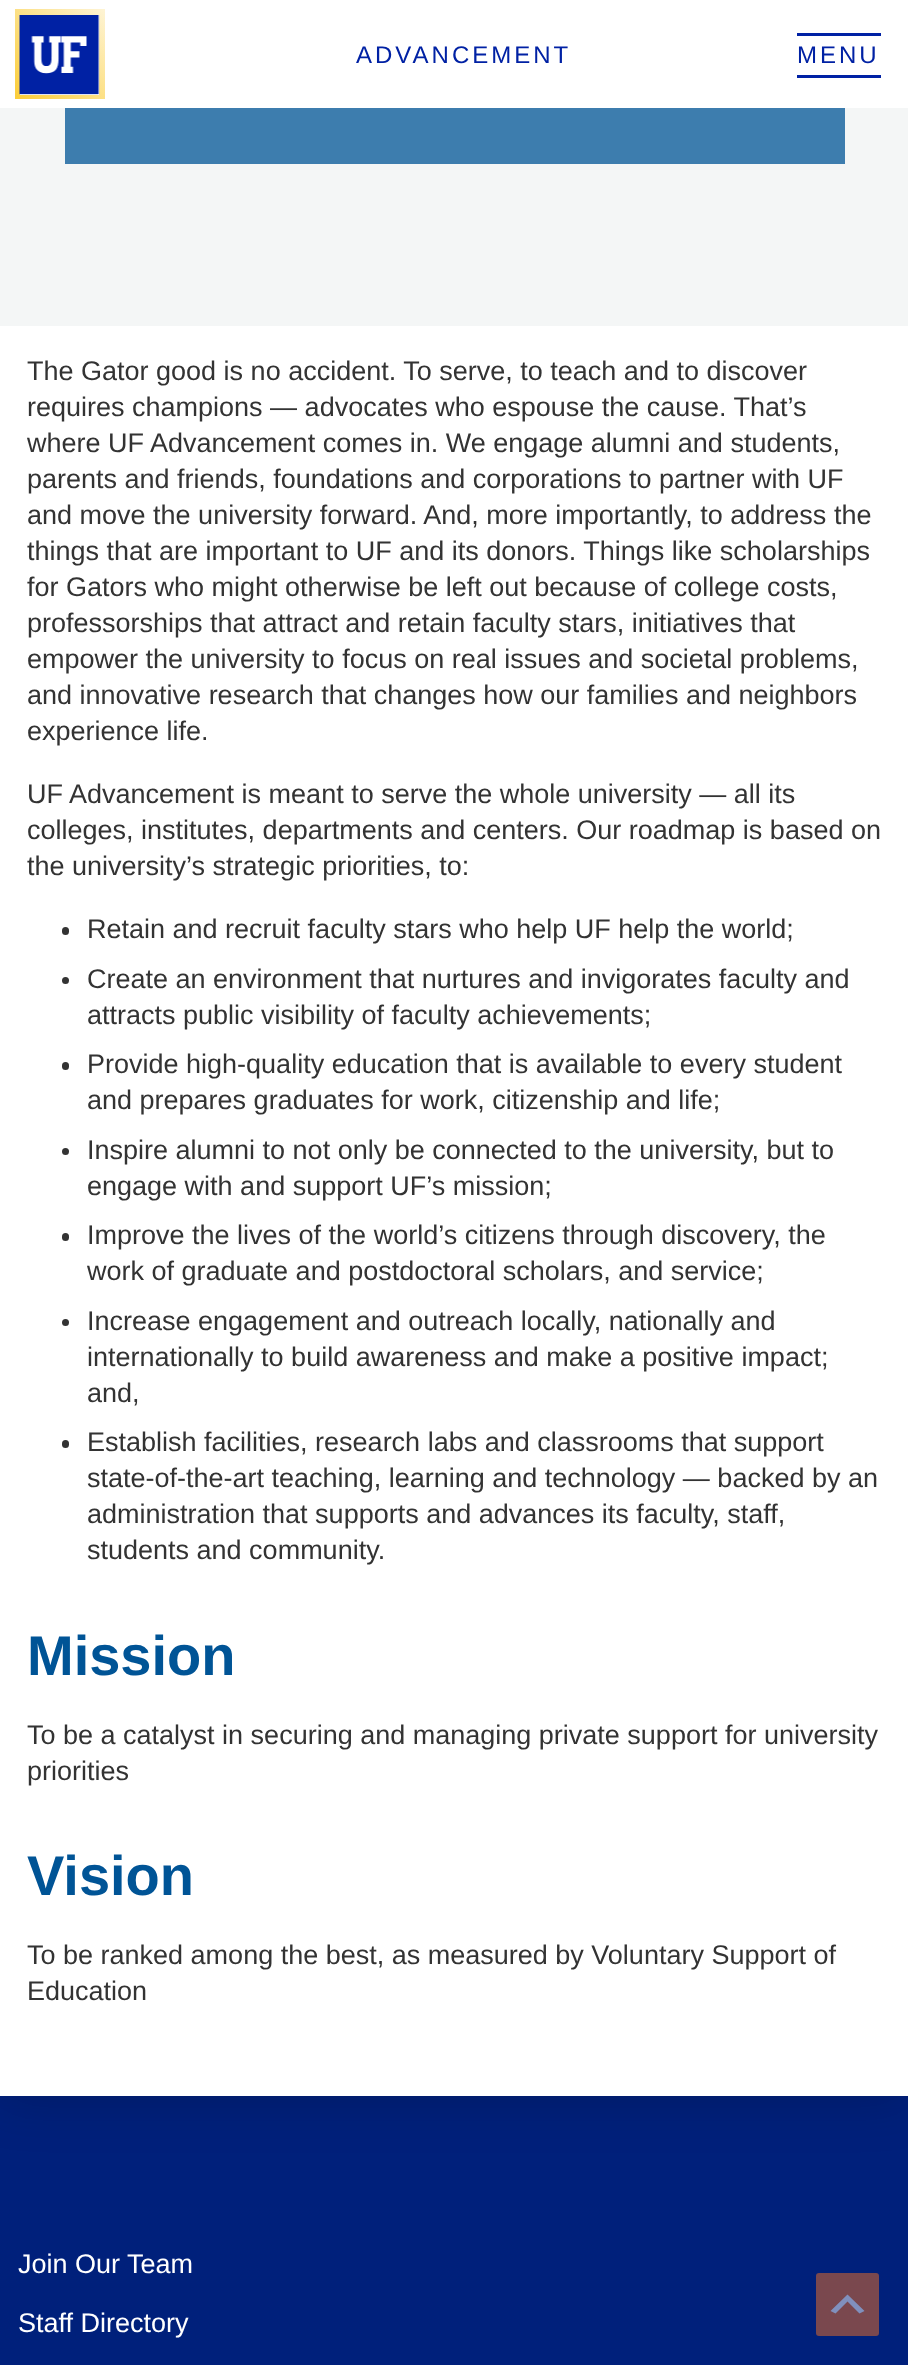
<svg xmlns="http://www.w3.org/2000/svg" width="908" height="2365">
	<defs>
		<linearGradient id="g1" gradientUnits="userSpaceOnUse" x1="15" y1="99" x2="105" y2="9"><stop offset="0" stop-color="#FBCD38" /><stop offset="1" stop-color="#FEF4D5" /></linearGradient>
	</defs>
	<rect width="100%" height="100%" fill="#00207B" />
	<rect x="0" y="-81" width="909" height="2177" fill="#000000" fill-opacity="0.2" filter="blur(27px)" />
	<rect x="0" y="0" width="908" height="108" fill="#FFFFFF" />
	<rect x="15" y="9" width="90" height="90" fill="url(#g1)" />
	<rect x="20" y="15" width="79" height="80" fill="#FFFFFF" />
	<image x="19" y="15" width="81" height="80" href="assets/img1.png" />
	<text x="356" y="63" font-family="Liberation Sans" font-size="24" letter-spacing="3" fill="#0021A4">ADVANCEMENT</text>
	<rect x="797" y="33" width="84" height="3" fill="#0021A4" />
	<text x="797" y="63" font-family="Liberation Sans" font-size="24" letter-spacing="3" fill="#0021A4">MENU</text>
	<rect x="797" y="75" width="84" height="3" fill="#0021A4" />
	<rect x="0" y="326" width="908" height="1770" fill="#FFFFFF" />
	<rect x="0" y="108" width="908" height="218" fill="#F4F6F6" />
	<rect x="65" y="108" width="780" height="56" fill="#005496" fill-opacity="0.75" />
	<g font-family="Liberation Sans" font-size="27" fill="#333333">
		<text x="27" y="380">The Gator good is no accident. To serve, to teach and to discover</text>
		<text x="27" y="416">requires champions — advocates who espouse the cause. That’s</text>
		<text x="27" y="452">where UF Advancement comes in. We engage alumni and students,</text>
		<text x="27" y="488">parents and friends, foundations and corporations to partner with UF</text>
		<text x="27" y="524">and move the university forward. And, more importantly, to address the</text>
		<text x="27" y="560">things that are important to UF and its donors. Things like scholarships</text>
		<text x="27" y="596">for Gators who might otherwise be left out because of college costs,</text>
		<text x="27" y="632">professorships that attract and retain faculty stars, initiatives that</text>
		<text x="27" y="668">empower the university to focus on real issues and societal problems,</text>
		<text x="27" y="704">and innovative research that changes how our families and neighbors</text>
		<text x="27" y="740">experience life.</text>
		<text x="27" y="803">UF Advancement is meant to serve the whole university — all its</text>
		<text x="27" y="839">colleges, institutes, departments and centers. Our roadmap is based on</text>
		<text x="27" y="875">the university’s strategic priorities, to:</text>
	</g>
	<rect x="62" y="927" width="7" height="8" rx="3.5" fill="#333333" />
	<text x="87" y="938" font-family="Liberation Sans" font-size="27" fill="#333333">Retain and recruit faculty stars who help UF help the world;</text>
	<circle cx="65.5" cy="980.5" r="3.5" fill="#333333" />
	<g font-family="Liberation Sans" font-size="27" fill="#333333">
		<text x="87" y="988">Create an environment that nurtures and invigorates faculty and</text>
		<text x="87" y="1024">attracts public visibility of faculty achievements;</text>
	</g>
	<rect x="62" y="1062" width="7" height="8" rx="3.5" fill="#333333" />
	<g font-family="Liberation Sans" font-size="27" fill="#333333">
		<text x="87" y="1073">Provide high-quality education that is available to every student</text>
		<text x="87" y="1109">and prepares graduates for work, citizenship and life;</text>
	</g>
	<circle cx="65.5" cy="1151.5" r="3.5" fill="#333333" />
	<g font-family="Liberation Sans" font-size="27" fill="#333333">
		<text x="87" y="1159">Inspire alumni to not only be connected to the university, but to</text>
		<text x="87" y="1195">engage with and support UF’s mission;</text>
	</g>
	<rect x="62" y="1233" width="7" height="8" rx="3.5" fill="#333333" />
	<g font-family="Liberation Sans" font-size="27" fill="#333333">
		<text x="87" y="1244">Improve the lives of the world’s citizens through discovery, the</text>
		<text x="87" y="1280">work of graduate and postdoctoral scholars, and service;</text>
	</g>
	<circle cx="65.5" cy="1322.5" r="3.5" fill="#333333" />
	<g font-family="Liberation Sans" font-size="27" fill="#333333">
		<text x="87" y="1330">Increase engagement and outreach locally, nationally and</text>
		<text x="87" y="1366">internationally to build awareness and make a positive impact;</text>
		<text x="87" y="1402">and,</text>
	</g>
	<rect x="62" y="1440" width="7" height="8" rx="3.5" fill="#333333" />
	<g font-family="Liberation Sans" font-size="27" fill="#333333">
		<text x="87" y="1451">Establish facilities, research labs and classrooms that support</text>
		<text x="87" y="1487">state-of-the-art teaching, learning and technology — backed by an</text>
		<text x="87" y="1523">administration that supports and advances its faculty, staff,</text>
		<text x="87" y="1559">students and community.</text>
	</g>
	<text x="27" y="1675" font-family="Liberation Sans" font-size="56" font-weight="700" fill="#005496">Mission</text>
	<g font-family="Liberation Sans" font-size="27" fill="#333333">
		<text x="27" y="1744">To be a catalyst in securing and managing private support for university</text>
		<text x="27" y="1780">priorities</text>
	</g>
	<text x="27" y="1895" font-family="Liberation Sans" font-size="56" font-weight="700" fill="#005496">Vision</text>
	<g font-family="Liberation Sans" font-size="27" fill="#333333">
		<text x="27" y="1964">To be ranked among the best, as measured by Voluntary Support of</text>
		<text x="27" y="2000">Education</text>
	</g>
	<g font-family="Liberation Sans" font-size="27" fill="#FFFFFF">
		<text x="18" y="2273">Join Our Team</text>
		<text x="18" y="2332">Staff Directory</text>
	</g>
	<rect x="816" y="2273" width="63" height="63" rx="3" fill="#7A484E" />
	<path d="M859.5 2313.5L847.5 2301.5L835.5 2313.5L830.5 2311L847.5 2294.5L864.5 2311Z" fill="#8090BD" />
</svg>
